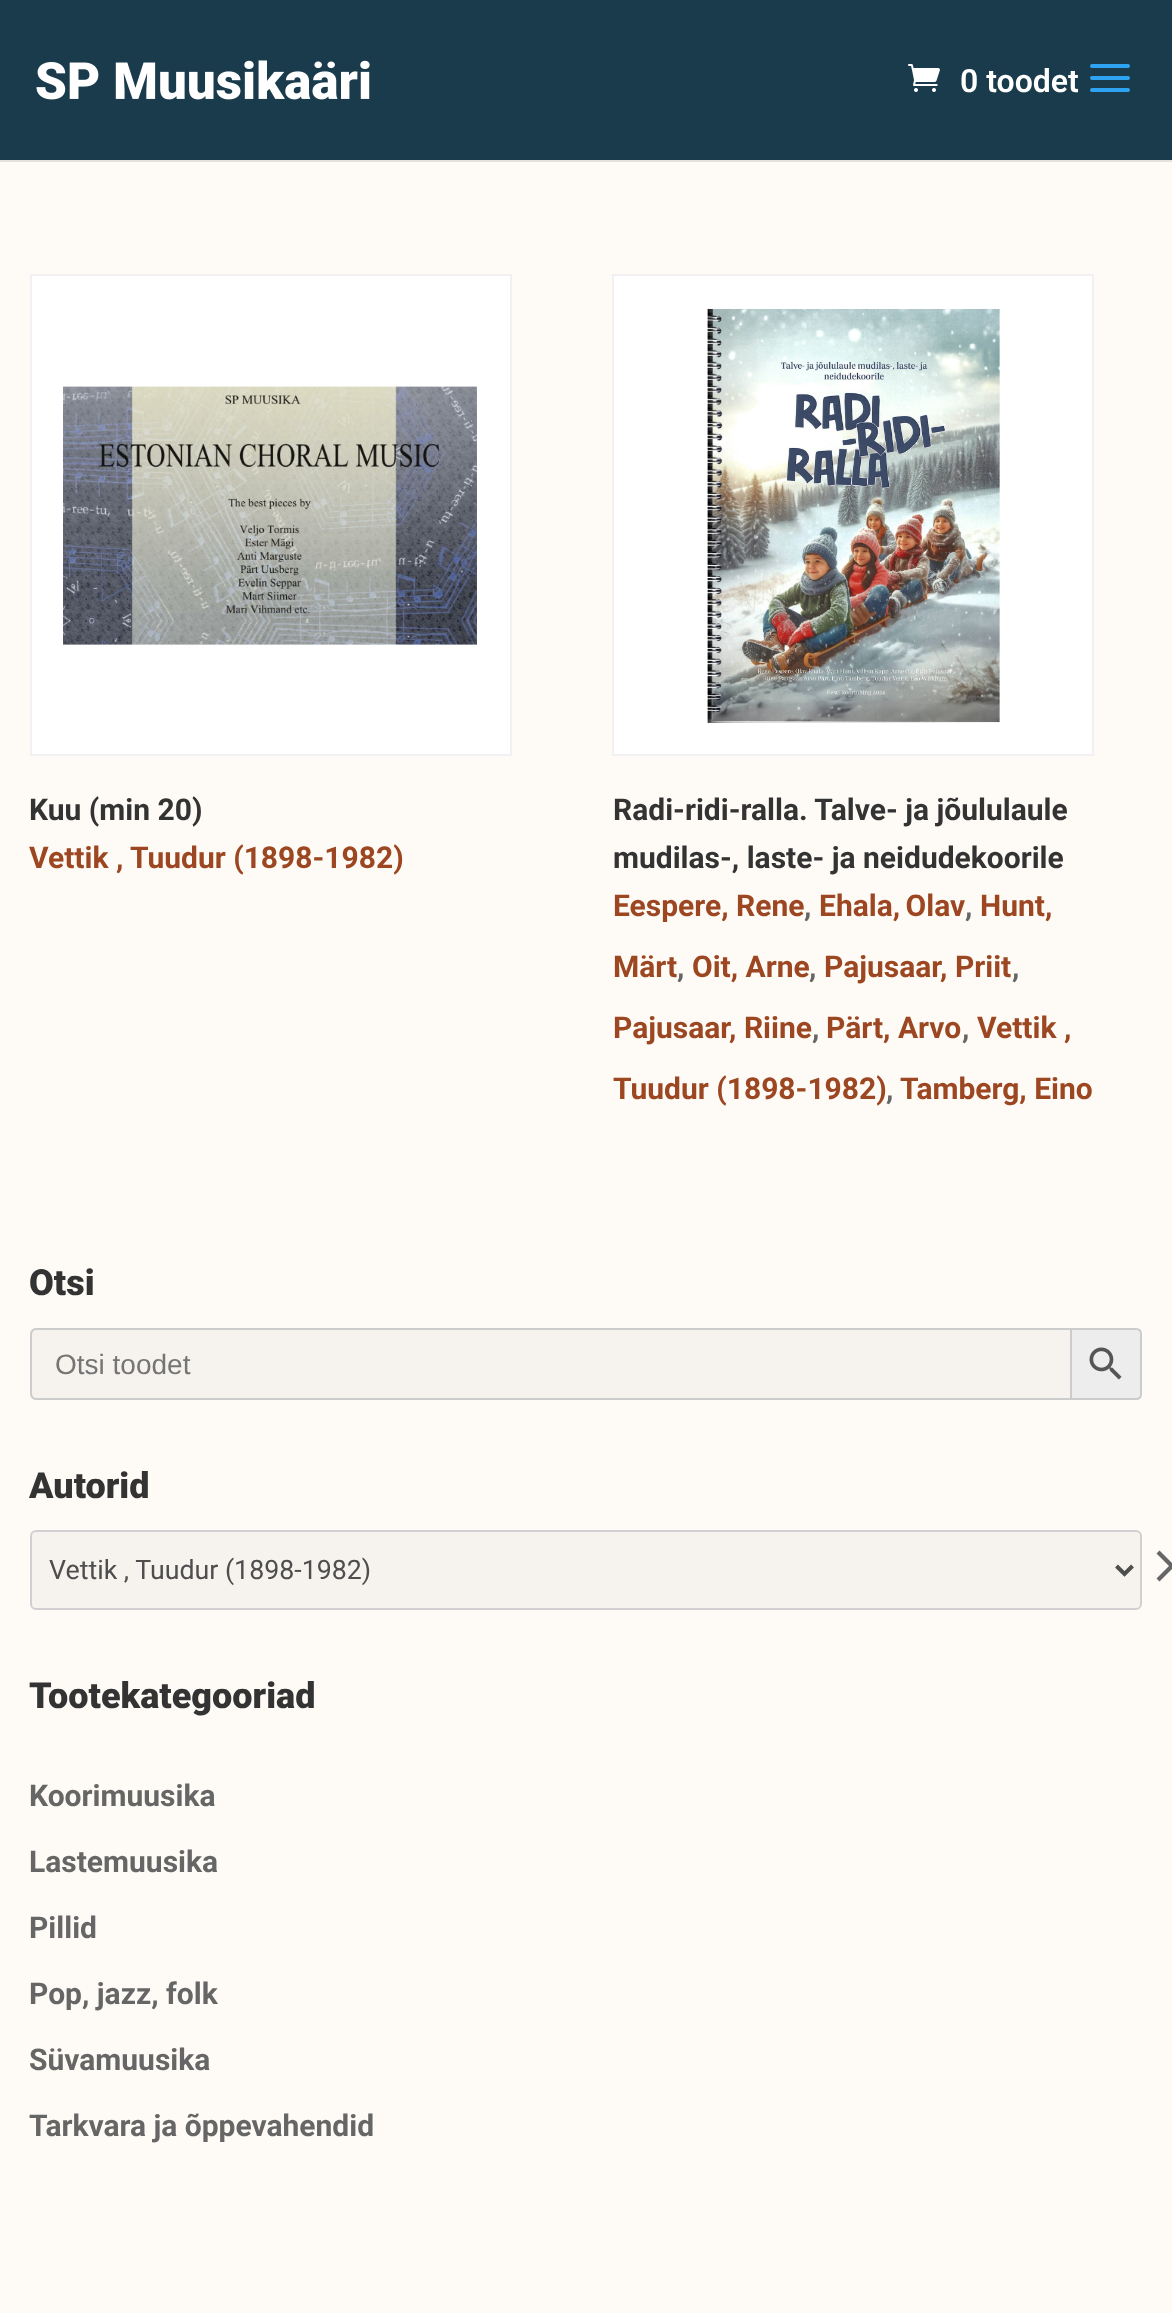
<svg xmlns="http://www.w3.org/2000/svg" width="1172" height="2313">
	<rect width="100%" height="100%" fill="#FEFBF6" />
	<rect x="0" y="160" width="1172" height="2" fill="#E5E2DD" />
	<rect x="0" y="0" width="1172" height="160" fill="#1A3B4C" />
	<image x="36" y="60" width="334" height="40" href="assets/img1.png" />
	<image x="908" y="64" width="32" height="28" href="assets/img2.png" />
	<text x="960" y="92" font-family="Roboto" font-size="32" font-weight="600" fill="#FFFFFF">0 toodet</text>
	<image x="1090" y="64" width="40" height="28" href="assets/img3.png" />
	<rect x="31" y="275" width="480" height="480" fill="#FFFFFF" stroke="#F2F0F2" stroke-width="2" />
	<image x="63" y="386" width="414" height="259" href="assets/img4.png" />
	<text x="29" y="820" font-family="Roboto" font-size="30" font-weight="700" fill="#333333">Kuu (min 20)</text>
	<text x="29" y="868" font-family="Roboto" font-size="30" font-weight="700" fill="#9C4721">Vettik , Tuudur (1898-1982)</text>
	<rect x="613" y="275" width="480" height="480" fill="#FFFFFF" stroke="#F2F0F2" stroke-width="2" />
	<image x="707" y="308" width="293" height="415" href="assets/img5.png" />
	<g font-family="Roboto" font-size="30" font-weight="700" fill="#333333">
		<text x="613" y="820">Radi-ridi-ralla. Talve- ja jõululaule</text>
		<text x="613" y="868">mudilas-, laste- ja neidudekoorile</text>
	</g>
	<text x="613" y="916" font-family="Roboto" font-size="30" font-weight="700" fill="#9C4721">Eespere, Rene</text>
	<text x="804" y="916" font-family="Roboto" font-size="30" font-weight="700" fill="#666666">,</text>
	<text x="819" y="916" word-spacing="-2" font-family="Roboto" font-size="30" font-weight="700" fill="#9C4721">Ehala, Olav</text>
	<text x="965" y="916" font-family="Roboto" font-size="30" font-weight="700" fill="#666666">,</text>
	<g font-family="Roboto" font-size="30" font-weight="700" fill="#9C4721">
		<text x="980" y="916">Hunt,</text>
		<text x="613" y="977">Märt</text>
	</g>
	<text x="677" y="977" font-family="Roboto" font-size="30" font-weight="700" fill="#666666">,</text>
	<text x="692" y="977" font-family="Roboto" font-size="30" font-weight="700" fill="#9C4721">Oit, Arne</text>
	<text x="809" y="977" font-family="Roboto" font-size="30" font-weight="700" fill="#666666">,</text>
	<text x="824" y="977" font-family="Roboto" font-size="30" font-weight="700" fill="#9C4721">Pajusaar, Priit</text>
	<text x="1012" y="977" font-family="Roboto" font-size="30" font-weight="700" fill="#666666">,</text>
	<text x="613" y="1038" font-family="Roboto" font-size="30" font-weight="700" fill="#9C4721">Pajusaar, Riine</text>
	<text x="812" y="1038" font-family="Roboto" font-size="30" font-weight="700" fill="#666666">,</text>
	<text x="826" y="1038" font-family="Roboto" font-size="30" font-weight="700" fill="#9C4721">Pärt, Arvo</text>
	<text x="962" y="1038" font-family="Roboto" font-size="30" font-weight="700" fill="#666666">,</text>
	<g font-family="Roboto" font-size="30" font-weight="700" fill="#9C4721">
		<text x="977" y="1038">Vettik ,</text>
		<text x="613" y="1099">Tuudur (1898-1982)</text>
	</g>
	<text x="886" y="1099" font-family="Roboto" font-size="30" font-weight="700" fill="#666666">,</text>
	<text x="900" y="1099" font-family="Roboto" font-size="30" font-weight="700" fill="#9C4721">Tamberg, Eino</text>
	<text x="29" y="1295" font-family="Roboto" font-size="36" font-weight="900" fill="#333333">Otsi</text>
	<path d="M36 1328H1070V1400H36C32.5 1400 30 1397.5 30 1394V1334C30 1330.5 32.5 1328 36 1328Z" fill="#F6F3EE" />
	<path d="M36 1328H1070V1400H36C33 1400 30 1397 30 1394V1334C30 1331 33 1328 36 1328ZM36 1330H1070V1398H36C34 1398 32 1396 32 1394V1334C32 1332 34 1330 36 1330Z" fill="#CCCCCC" fill-rule="evenodd" />
	<text x="55" y="1374" font-family="Liberation Sans" font-size="28" fill="#757575">Otsi toodet</text>
	<path d="M1071 1329H1136C1139 1329 1141 1331 1141 1334V1394C1141 1397 1139 1399 1136 1399H1071Z" fill="#EDEDED" stroke="#CCCCCC" stroke-width="2" />
	<image x="1089" y="1347" width="33" height="33" href="assets/img6.png" />
	<text x="29" y="1498" font-family="Roboto" font-size="36" font-weight="900" fill="#333333">Autorid</text>
	<rect x="31" y="1531" width="1110" height="78" rx="5" fill="#F6F3EE" stroke="#D3CED2" stroke-width="2" />
	<path d="M1116.5 1566L1124.5 1574L1132.5 1566" fill="none" stroke="#4E4E4E" stroke-width="4" />
	<text x="49" y="1579" font-family="Roboto" font-size="26.75" fill="#4E4E4E">Vettik , Tuudur (1898-1982)</text>
	<path d="M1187.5 1553.5L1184.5 1550.5L1156.5 1578.5L1159.5 1581.5Z" fill="#666666" />
	<path d="M1159.5 1550.5L1156.5 1553.5L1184.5 1581.5L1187.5 1578.5Z" fill="#666666" />
	<text x="29" y="1708" font-family="Roboto" font-size="36" font-weight="900" fill="#333333">Tootekategooriad</text>
	<g font-family="Roboto" font-size="30" font-weight="700" fill="#666666">
		<text x="29" y="1806">Koorimuusika</text>
		<text x="29" y="1872">Lastemuusika</text>
		<text x="29" y="1938">Pillid</text>
		<text x="29" y="2004">Pop, jazz, folk</text>
		<text x="29" y="2070">Süvamuusika</text>
		<text x="29" y="2136">Tarkvara ja õppevahendid</text>
	</g>
</svg>
